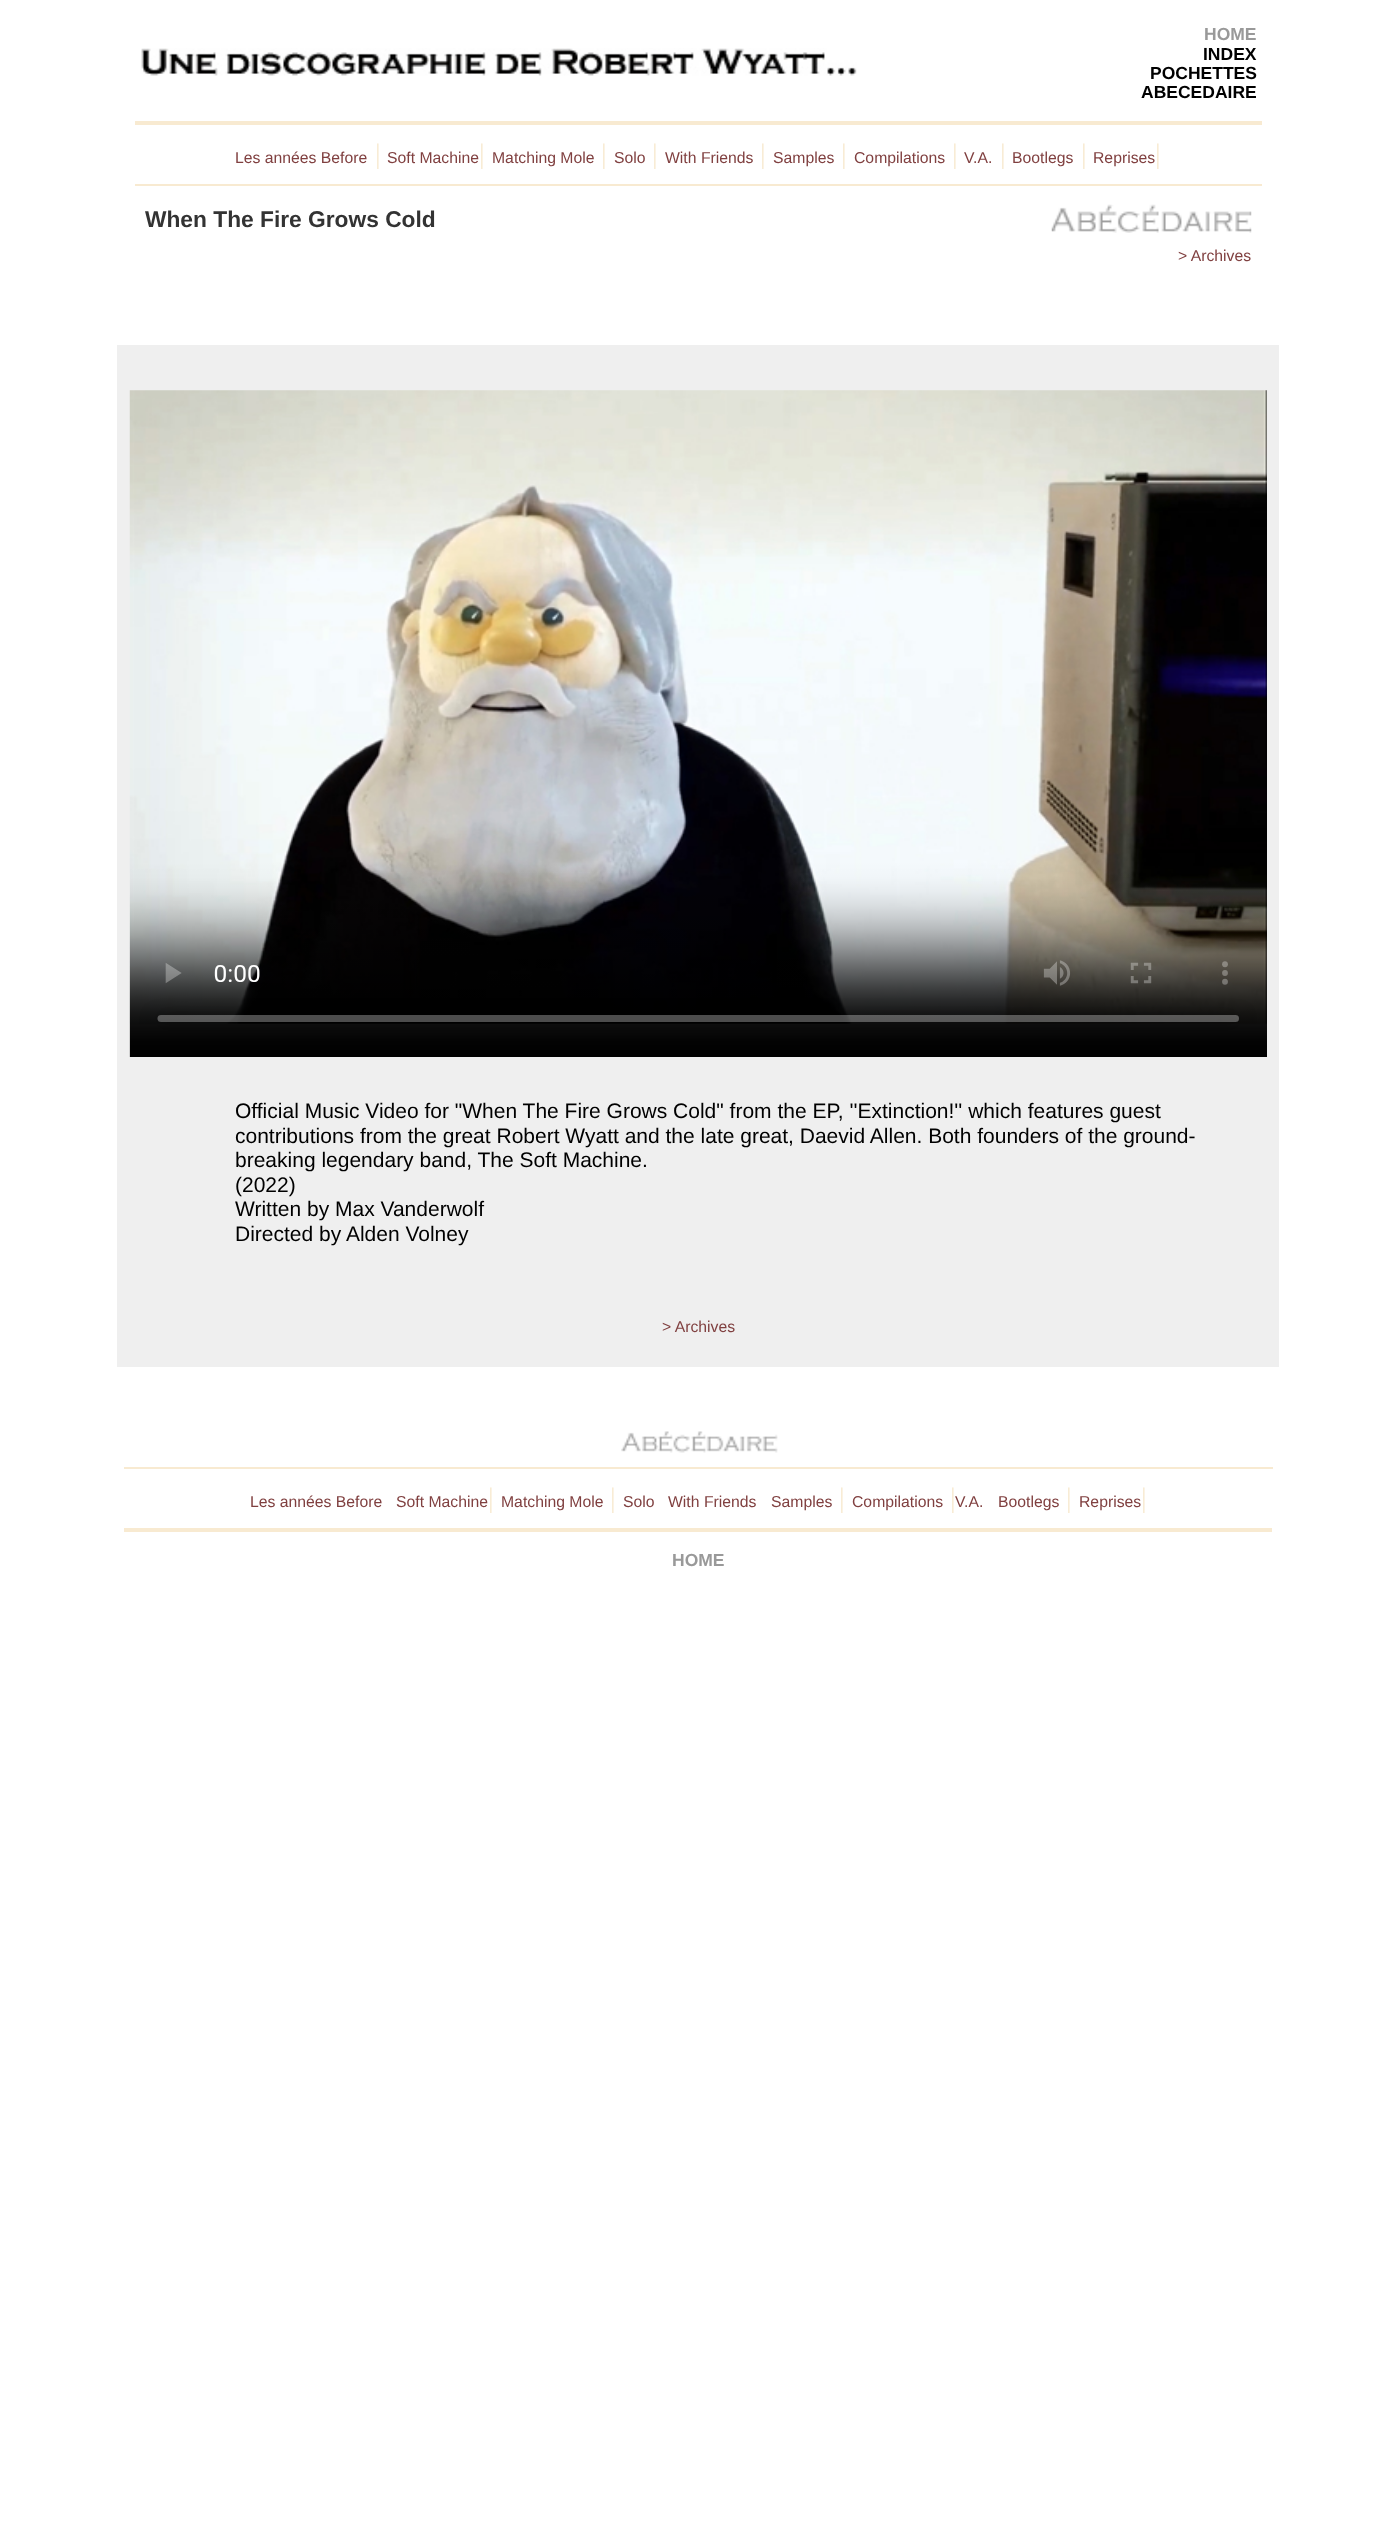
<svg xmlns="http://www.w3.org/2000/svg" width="1396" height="2535">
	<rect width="100%" height="100%" fill="#FFFFFF" />
	<image x="141" y="48" width="716" height="28" href="assets/img1.png" />
	<text x="1204" y="40" font-family="Liberation Sans" font-size="17.5" font-weight="700" fill="#999999">HOME</text>
	<g font-family="Liberation Sans" font-size="17.5" font-weight="700" fill="#000000">
		<text x="1203" y="60">INDEX</text>
		<text x="1150" y="79">POCHETTES</text>
		<text x="1141" y="98">ABECEDAIRE</text>
	</g>
	<rect x="135" y="121" width="1127" height="4" fill="#F8EAD1" />
	<text x="235" y="163" font-family="Liberation Sans" font-size="15.75" fill="#804040">Les années Before</text>
	<text x="375" y="163" font-family="Liberation Serif" font-size="28" fill="#F8EAD1">|</text>
	<text x="387" y="163" font-family="Liberation Sans" font-size="15.75" fill="#804040">Soft Machine</text>
	<text x="479" y="163" font-family="Liberation Serif" font-size="28" fill="#F8EAD1">|</text>
	<text x="492" y="163" font-family="Liberation Sans" font-size="15.75" fill="#804040">Matching Mole</text>
	<text x="601" y="163" font-family="Liberation Serif" font-size="28" fill="#F8EAD1">|</text>
	<text x="614" y="163" font-family="Liberation Sans" font-size="15.75" fill="#804040">Solo</text>
	<text x="652" y="163" font-family="Liberation Serif" font-size="28" fill="#F8EAD1">|</text>
	<text x="665" y="163" font-family="Liberation Sans" font-size="15.75" fill="#804040">With Friends</text>
	<text x="760" y="163" font-family="Liberation Serif" font-size="28" fill="#F8EAD1">|</text>
	<text x="773" y="163" font-family="Liberation Sans" font-size="15.75" fill="#804040">Samples</text>
	<text x="841" y="163" font-family="Liberation Serif" font-size="28" fill="#F8EAD1">|</text>
	<text x="854" y="163" font-family="Liberation Sans" font-size="15.75" fill="#804040">Compilations</text>
	<text x="952" y="163" font-family="Liberation Serif" font-size="28" fill="#F8EAD1">|</text>
	<text x="964" y="163" font-family="Liberation Sans" font-size="15.75" fill="#804040">V.A.</text>
	<text x="1000" y="163" font-family="Liberation Serif" font-size="28" fill="#F8EAD1">|</text>
	<text x="1012" y="163" font-family="Liberation Sans" font-size="15.75" fill="#804040">Bootlegs</text>
	<text x="1081" y="163" font-family="Liberation Serif" font-size="28" fill="#F8EAD1">|</text>
	<text x="1093" y="163" font-family="Liberation Sans" font-size="15.75" fill="#804040">Reprises</text>
	<text x="1155" y="163" font-family="Liberation Serif" font-size="28" fill="#F8EAD1">|</text>
	<rect x="135" y="184" width="1127" height="2" fill="#F8EAD1" />
	<text x="145" y="227" font-family="Liberation Sans" font-size="22.75" font-weight="700" fill="#333333">When The Fire Grows Cold</text>
	<image x="1051" y="204" width="201" height="29" href="assets/img2.png" />
	<text x="1178" y="261" font-family="Liberation Sans" font-size="15.75" fill="#804040">&gt; Archives</text>
	<rect x="117" y="345" width="1162" height="1022" fill="#EFEFEF" />
	<image x="129" y="390" width="1138" height="667" href="assets/img3.png" />
	<g font-family="Liberation Sans" font-size="21" fill="#000000">
		<text x="235" y="1118">Official Music Video for "When The Fire Grows Cold" from the EP, ''Extinction!'' which features guest</text>
		<text x="235" y="1143">contributions from the great Robert Wyatt and the late great, Daevid Allen. Both founders of the ground-</text>
		<text x="235" y="1167">breaking legendary band, The Soft Machine.</text>
		<text x="235" y="1192">(2022)</text>
		<text x="235" y="1216">Written by Max Vanderwolf</text>
		<text x="235" y="1241">Directed by Alden Volney</text>
	</g>
	<text x="662" y="1332" font-family="Liberation Sans" font-size="15.75" fill="#804040">&gt; Archives</text>
	<image x="621" y="1431" width="157" height="22" href="assets/img4.png" />
	<rect x="124" y="1467" width="1149" height="2" fill="#F8EAD1" />
	<g font-family="Liberation Sans" font-size="15.75" fill="#804040">
		<text x="250" y="1507">Les années Before</text>
		<text x="396" y="1507">Soft Machine</text>
	</g>
	<text x="488" y="1507" font-family="Liberation Serif" font-size="28" fill="#F8EAD1">|</text>
	<text x="501" y="1507" font-family="Liberation Sans" font-size="15.75" fill="#804040">Matching Mole</text>
	<text x="610" y="1507" font-family="Liberation Serif" font-size="28" fill="#F8EAD1">|</text>
	<g font-family="Liberation Sans" font-size="15.75" fill="#804040">
		<text x="623" y="1507">Solo</text>
		<text x="668" y="1507">With Friends</text>
		<text x="771" y="1507">Samples</text>
	</g>
	<text x="839" y="1507" font-family="Liberation Serif" font-size="28" fill="#F8EAD1">|</text>
	<text x="852" y="1507" font-family="Liberation Sans" font-size="15.75" fill="#804040">Compilations</text>
	<text x="950" y="1507" font-family="Liberation Serif" font-size="28" fill="#F8EAD1">|</text>
	<g font-family="Liberation Sans" font-size="15.75" fill="#804040">
		<text x="955" y="1507">V.A.</text>
		<text x="998" y="1507">Bootlegs</text>
	</g>
	<text x="1066" y="1507" font-family="Liberation Serif" font-size="28" fill="#F8EAD1">|</text>
	<text x="1079" y="1507" font-family="Liberation Sans" font-size="15.75" fill="#804040">Reprises</text>
	<text x="1141" y="1507" font-family="Liberation Serif" font-size="28" fill="#F8EAD1">|</text>
	<rect x="124" y="1528" width="1148" height="4" fill="#F8EAD1" />
	<text x="672" y="1566" font-family="Liberation Sans" font-size="17.5" font-weight="700" fill="#999999">HOME</text>
</svg>
